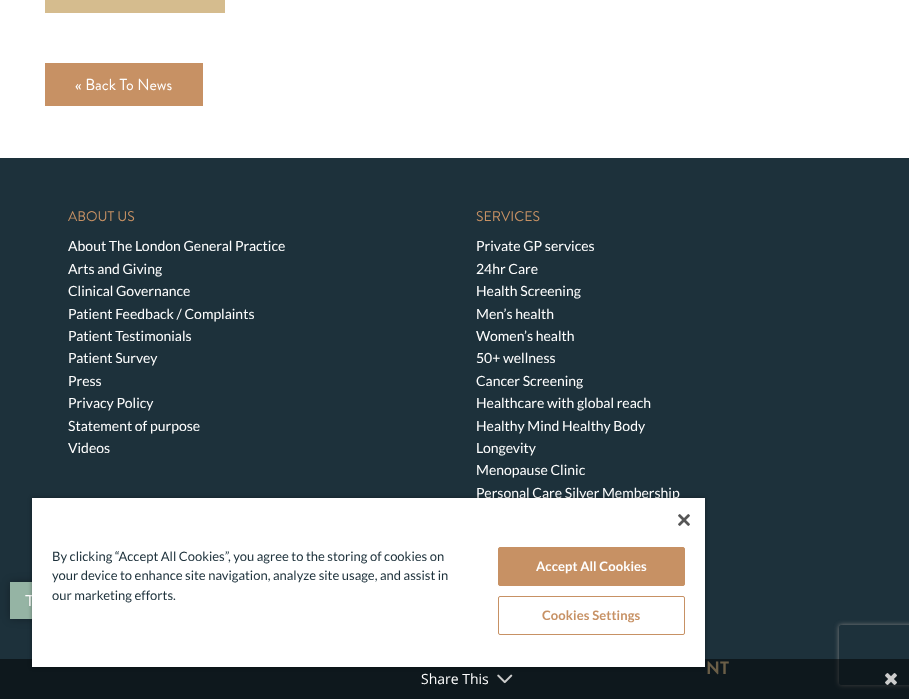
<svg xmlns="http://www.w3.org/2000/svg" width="909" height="699">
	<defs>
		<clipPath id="clip1"><path d="M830 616H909V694H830ZM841 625H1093C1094 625 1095 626 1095 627V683C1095 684 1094 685 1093 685H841C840 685 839 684 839 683V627C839 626 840 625 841 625Z" clip-rule="evenodd" /></clipPath>
	</defs>
	<rect width="100%" height="100%" fill="#FFFFFF" />
	<rect x="45" y="0" width="180" height="13" fill="#D5BC8E" />
	<rect x="45" y="63" width="158" height="43" fill="#C79164" />
	<text x="75" y="90" font-family="Brandon Grotesque" font-size="16" fill="#FFFFFF">« Back To News</text>
	<rect x="0" y="158" width="909" height="541" fill="#1D313B" />
	<text x="68" y="221" font-family="Brandon Grotesque" font-size="14" fill="#C79164">ABOUT US</text>
	<g font-family="Lato" font-size="14" fill="#FFFFFF">
		<text x="68" y="251">About The London General Practice</text>
		<text x="68" y="274">Arts and Giving</text>
		<text x="68" y="296">Clinical Governance</text>
		<text x="68" y="319">Patient Feedback / Complaints</text>
		<text x="68" y="341">Patient Testimonials</text>
		<text x="68" y="363">Patient Survey</text>
		<text x="68" y="386">Press</text>
		<text x="68" y="408">Privacy Policy</text>
		<text x="68" y="431">Statement of purpose</text>
		<text x="68" y="453">Videos</text>
	</g>
	<text x="476" y="221" font-family="Brandon Grotesque" font-size="14" fill="#C79164">SERVICES</text>
	<g font-family="Lato" font-size="14" fill="#FFFFFF">
		<text x="476" y="251">Private GP services</text>
		<text x="476" y="274">24hr Care</text>
		<text x="476" y="296">Health Screening</text>
		<text x="476" y="319">Men’s health</text>
		<text x="476" y="341">Women’s health</text>
		<text x="476" y="363">50+ wellness</text>
		<text x="476" y="386">Cancer Screening</text>
		<text x="476" y="408">Healthcare with global reach</text>
		<text x="476" y="431">Healthy Mind Healthy Body</text>
		<text x="476" y="453">Longevity</text>
		<text x="476" y="475">Menopause Clinic</text>
		<text x="476" y="498">Personal Care Silver Membership</text>
	</g>
	<text x="706" y="674" font-family="Brandon Grotesque" font-size="18" font-weight="700" fill="#D5BC8E">NT</text>
	<rect x="10" y="582" width="109" height="37" fill="#000000" fill-opacity="0.3" filter="blur(4.5px)" />
	<rect x="10" y="582" width="22" height="37" fill="#95B4A4" />
	<text x="25" y="606" font-family="Liberation Sans" font-size="16" fill="#FFFFFF">T</text>
	<g clip-path="url(#clip1)">
		<rect x="839" y="625" width="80" height="60" rx="2" fill="#808080" filter="blur(2.5px)" />
	</g>
	<rect x="0" y="659" width="909" height="40" fill="#000000" fill-opacity="0.5" />
	<rect x="32" y="498" width="673" height="169" fill="#000000" fill-opacity="0.35" filter="blur(2px)" />
	<rect x="32" y="498" width="673" height="169" fill="#FFFFFF" />
	<image x="678" y="514" width="12" height="12" href="assets/img1.png" />
	<g font-family="Lato" font-size="13" fill="#1D313B">
		<text x="52" y="561">By clicking “Accept All Cookies”, you agree to the storing of cookies on</text>
		<text x="52" y="580">your device to enhance site navigation, analyze site usage, and assist in</text>
		<text x="52" y="600">our marketing efforts.</text>
	</g>
	<rect x="498.5" y="547.5" width="186" height="38" rx="1.5" fill="#C79164" stroke="#C79164" />
	<text x="536" y="571" font-family="Lato" font-size="13" font-weight="700" letter-spacing="0.1" fill="#FFFFFF">Accept All Cookies</text>
	<rect x="498.5" y="596.5" width="186" height="38" rx="1.5" fill="none" stroke="#C79164" />
	<text x="542" y="620" font-family="Lato" font-size="13" font-weight="700" letter-spacing="0.1" fill="#C79164">Cookies Settings</text>
	<text x="421" y="684" font-family="Open Sans" font-size="14" fill="#FFFFFF">Share This</text>
	<image x="497" y="674" width="16" height="10" href="assets/img2.png" />
	<image x="885" y="673" width="12" height="12" href="assets/img3.png" />
</svg>
